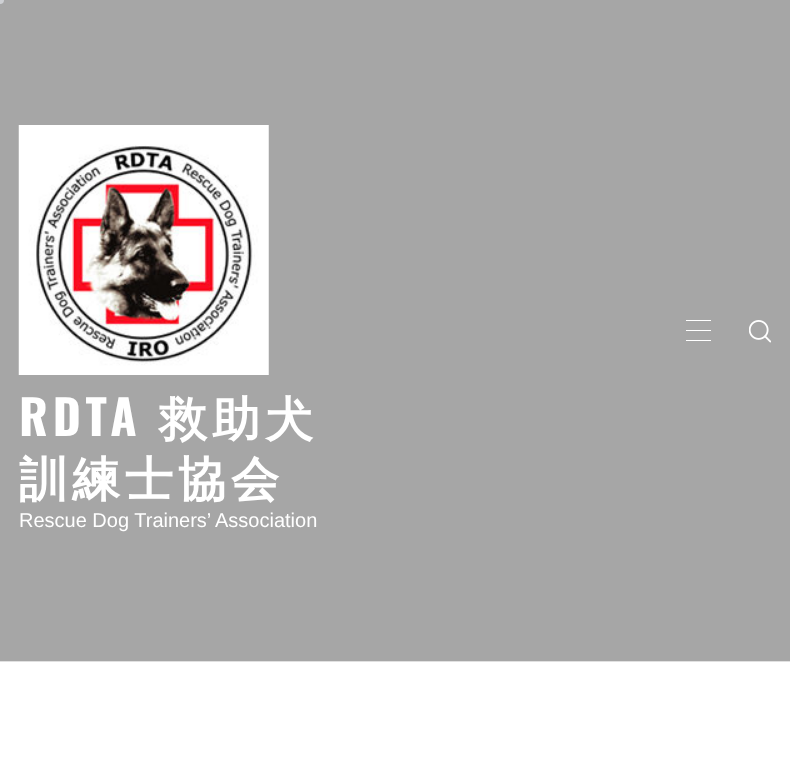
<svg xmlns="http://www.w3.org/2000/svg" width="790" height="780">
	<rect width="100%" height="100%" fill="#FFFFFF" />
	<rect x="0" y="0" width="790" height="661" fill="#A6A6A6" />
	<circle cx="0" cy="0" r="4" fill="#CED0D4" />
	<rect x="0" y="661" width="790" height="1" fill="#E0E0E0" />
	<rect x="686" y="330" width="25" height="1" fill="#FFFFFF" />
	<rect x="686" y="320" width="25" height="1" fill="#FFFFFF" />
	<rect x="686" y="340" width="25" height="1" fill="#FFFFFF" />
	<image x="749" y="320" width="22" height="23" href="assets/img1.png" />
	<image x="18" y="125" width="251" height="250" href="assets/img2.png" />
	<text x="19" y="436" font-family="Oswald" font-size="48" font-weight="700" letter-spacing="5" fill="#FFFFFF">RDTA</text>
	<g font-family="WenQuanYi Zen Hei" font-size="48" font-weight="700" letter-spacing="5" fill="#FFFFFF">
		<text x="159" y="436">救助犬</text>
		<text x="19" y="496">訓練士協会</text>
	</g>
	<text x="19" y="527" font-family="Liberation Sans" font-size="20" fill="#FFFFFF">Rescue Dog Trainers’ Association</text>
</svg>
